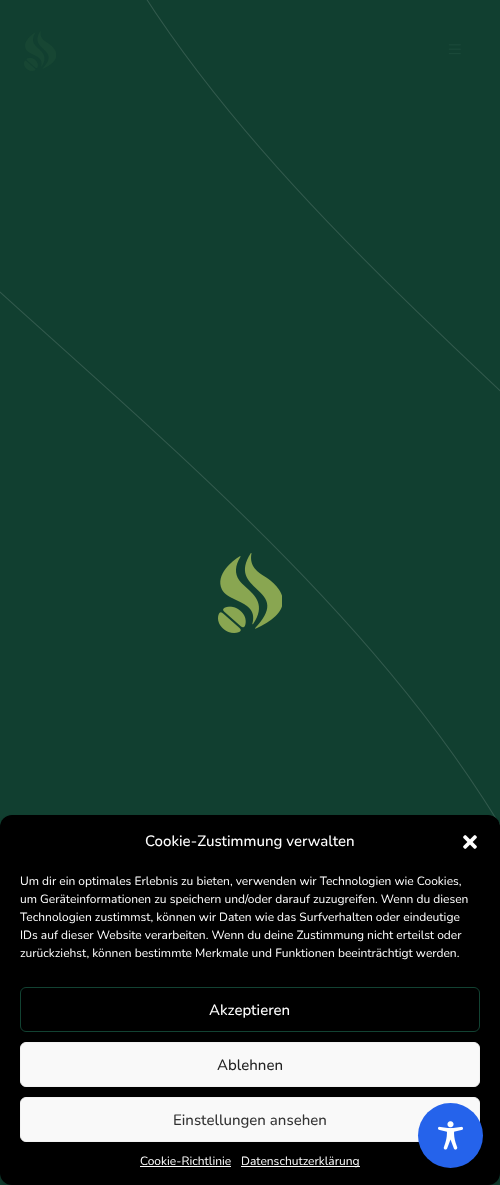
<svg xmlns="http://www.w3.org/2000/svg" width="500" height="1185">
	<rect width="100%" height="100%" fill="#113F30" />
	<image x="218" y="553" width="64" height="80" href="assets/img2.png" />
	<image x="24" y="31" width="32" height="40" href="assets/img3.png" />
	<image x="448" y="44" width="13" height="11" href="assets/img4.png" />
	<image x="0" y="0" width="500" height="826" href="assets/img1.png" />
	<rect x="0" y="821" width="500" height="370" rx="12" fill="#000000" fill-opacity="0.23" filter="blur(3px)" />
	<rect x="0" y="815" width="500" height="370" rx="12" fill="#000000" />
	<text x="145" y="846" font-family="Nunito" font-size="15" font-weight="500" fill="#FFFFFF">Cookie-Zustimmung verwalten</text>
	<image x="463" y="835" width="14" height="14" href="assets/img5.png" />
	<g font-family="Nunito" font-size="12" font-weight="200" fill="#FFFFFF">
		<text x="20" y="885">Um dir ein optimales Erlebnis zu bieten, verwenden wir Technologien wie Cookies,</text>
		<text x="20" y="903">um Geräteinformationen zu speichern und/oder darauf zuzugreifen. Wenn du diesen</text>
		<text x="20" y="921">Technologien zustimmst, können wir Daten wie das Surfverhalten oder eindeutige</text>
		<text x="20" y="939">IDs auf dieser Website verarbeiten. Wenn du deine Zustimmung nicht erteilst oder</text>
		<text x="20" y="957">zurückziehst, können bestimmte Merkmale und Funktionen beeinträchtigt werden.</text>
	</g>
	<rect x="20.5" y="987.5" width="459" height="44" rx="5.5" fill="none" stroke="#124232" />
	<text x="209" y="1015" font-family="Nunito" font-size="15" font-weight="500" fill="#FFFFFF">Akzeptieren</text>
	<rect x="20.5" y="1042.5" width="459" height="44" rx="5.5" fill="#F9F9F9" stroke="#F2F2F2" />
	<text x="217" y="1070" font-family="Nunito" font-size="15" font-weight="500" fill="#222222">Ablehnen</text>
	<rect x="20.5" y="1097.5" width="459" height="44" rx="5.5" fill="#F9F9F9" stroke="#F2F2F2" />
	<text x="173" y="1125" font-family="Nunito" font-size="15" font-weight="500" fill="#333333">Einstellungen ansehen</text>
	<text x="140" y="1165" font-family="Nunito" font-size="12" font-weight="200" fill="#FFFFFF">Cookie-Richtlinie</text>
	<rect x="140" y="1166" width="91" height="1" fill="#FFFFFF" />
	<rect x="241" y="1166" width="119" height="1" fill="#FFFFFF" />
	<text x="241" y="1165" font-family="Nunito" font-size="12" font-weight="200" fill="#FFFFFF">Datenschutzerklärung</text>
	<circle cx="450.5" cy="1135.5" r="32.5" fill="#2563EB" />
	<image x="438" y="1121" width="25" height="29" href="assets/img6.png" />
</svg>
